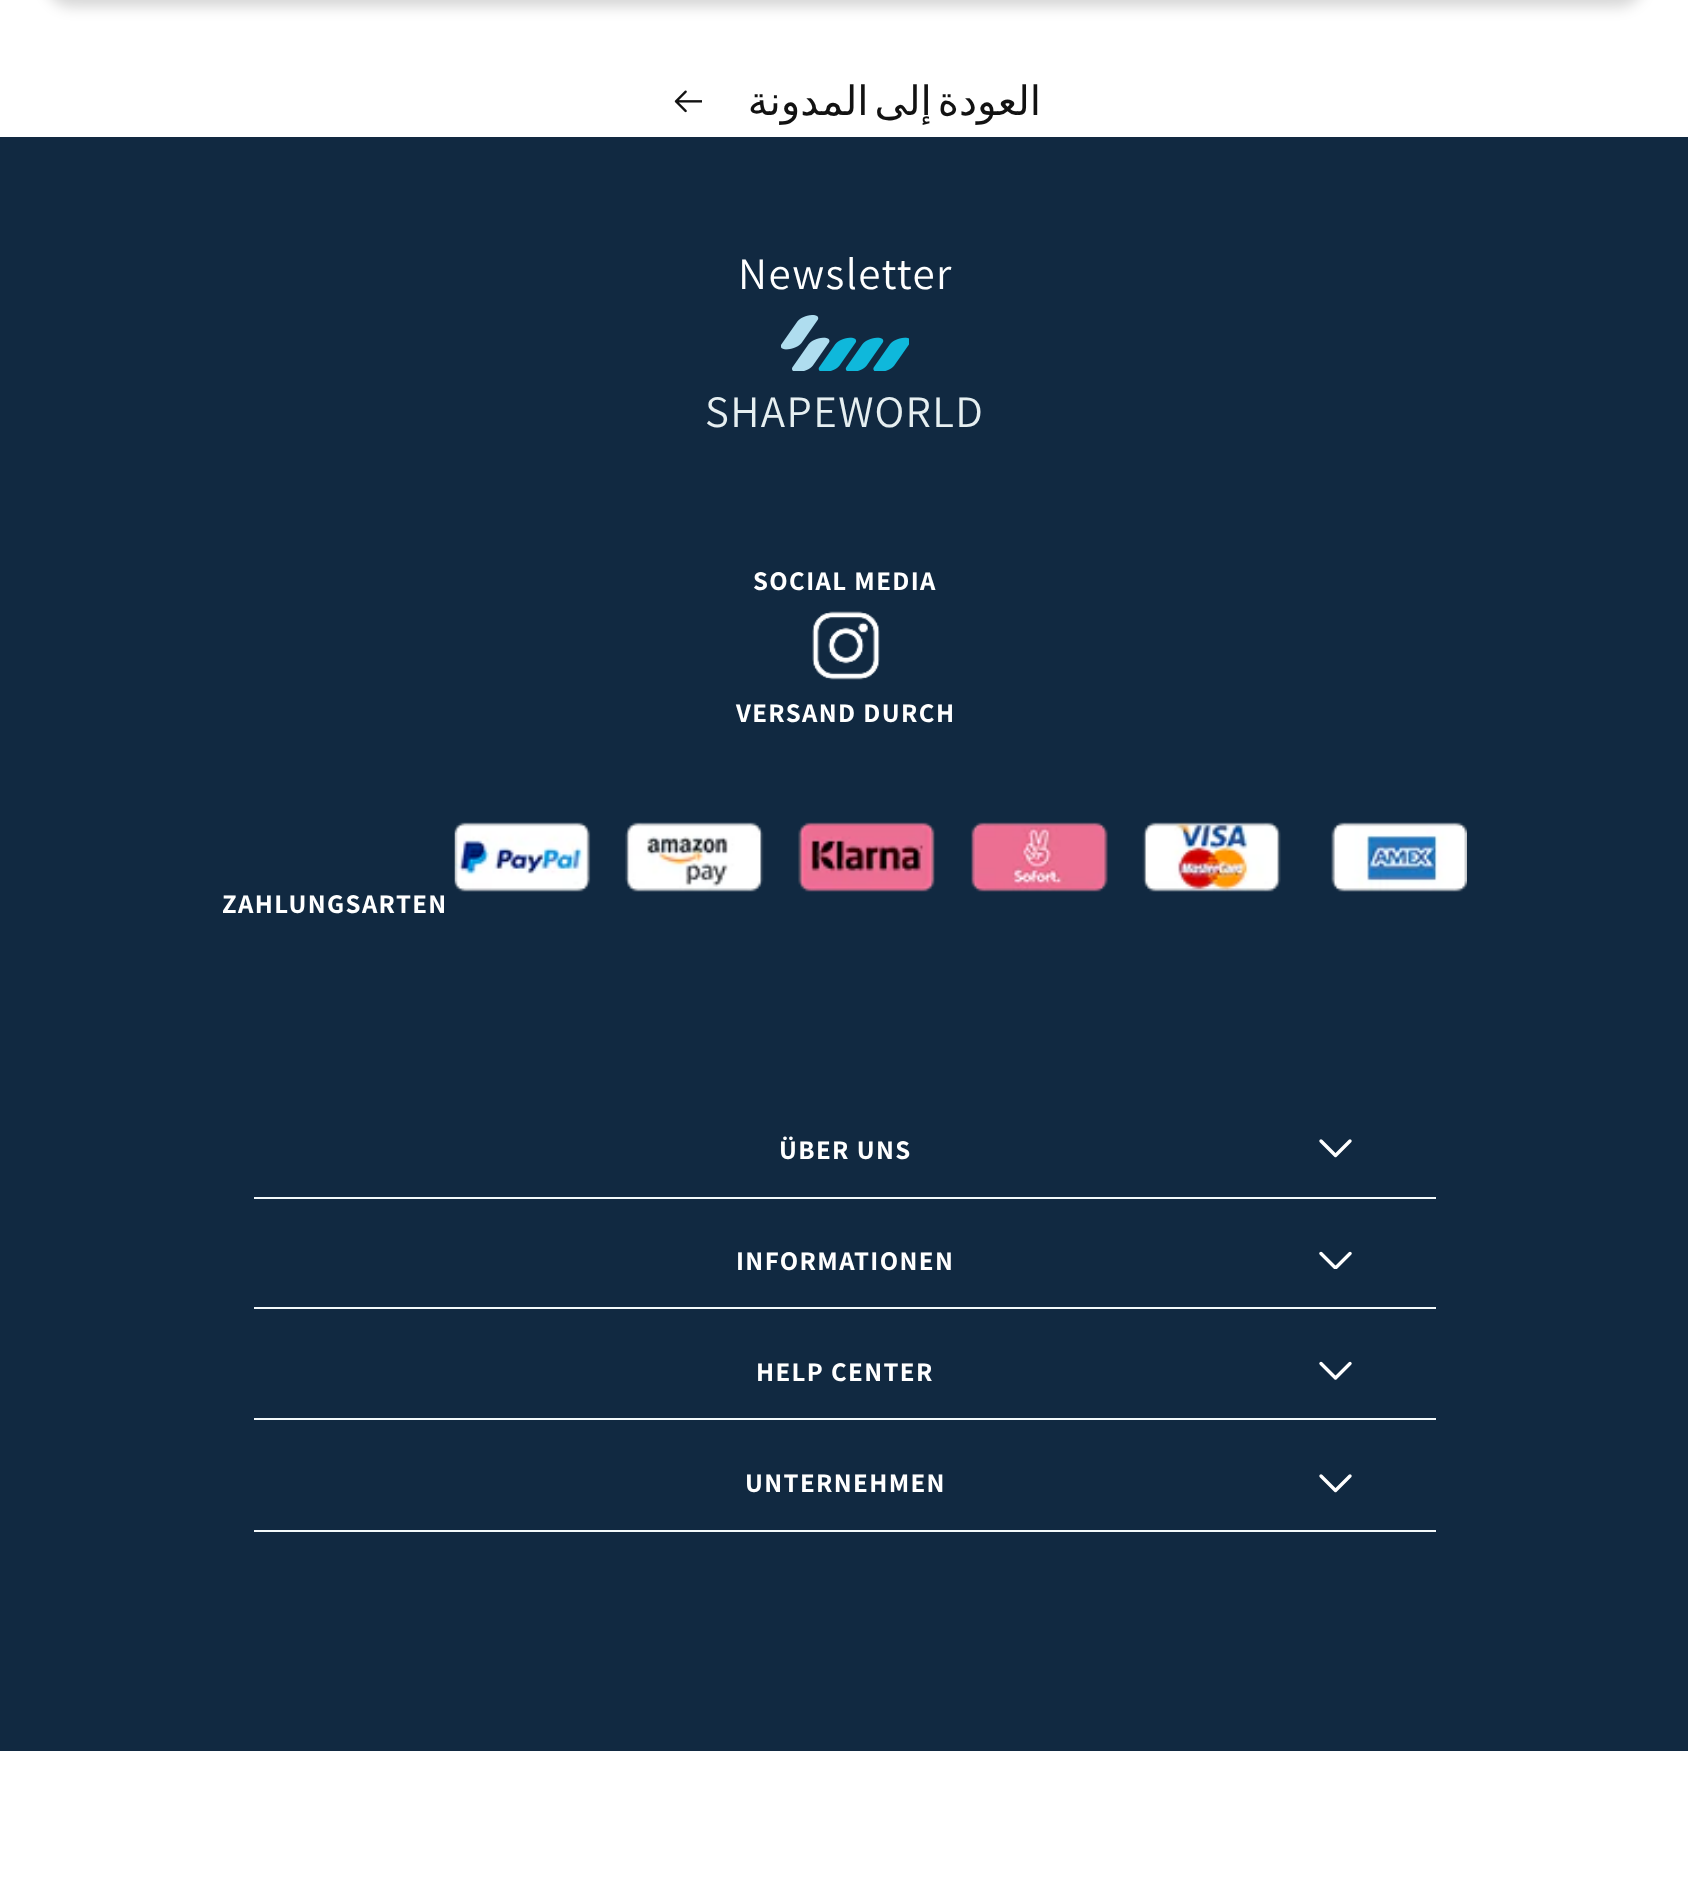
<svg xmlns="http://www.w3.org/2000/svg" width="1688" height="1899">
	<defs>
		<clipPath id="clip1"><rect x="1319" y="1251" width="33" height="18" /></clipPath>
	</defs>
	<rect width="100%" height="100%" fill="#FFFFFF" />
	<rect x="45" y="-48" width="1600" height="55" rx="27" fill="#000000" fill-opacity="0.16" filter="blur(7px)" />
	<image x="674" y="90" width="28" height="23" href="assets/img1.png" />
	<text x="1041" y="115" word-spacing="-7" font-family="DejaVu Sans" font-size="40.5" letter-spacing="1.4" direction="rtl" fill="#121212">العودة إلى المدونة</text>
	<rect x="0" y="137" width="1688" height="1614" fill="#112941" />
	<text x="738" y="289" font-family="Assistant" font-size="45" letter-spacing="1.4" fill="#FFFFFF">Newsletter</text>
	<image x="781" y="315" width="128" height="56" href="assets/img2.png" />
	<text x="705" y="427" font-family="Assistant" font-size="45" letter-spacing="1.4" fill="#E6EFF1">SHAPEWORLD</text>
	<text x="753" y="590" font-family="Assistant" font-size="27" font-weight="700" letter-spacing="1.4" fill="#FFFFFF">SOCIAL MEDIA</text>
	<image x="812" y="611" width="68" height="69" href="assets/img3.png" />
	<text x="736" y="722" font-family="Assistant" font-size="27" font-weight="700" letter-spacing="1.4" fill="#FFFFFF">VERSAND DURCH</text>
	<image x="454" y="822" width="1013" height="70" href="assets/img4.png" />
	<text x="222" y="913" font-family="Assistant" font-size="27" font-weight="700" letter-spacing="1.4" fill="#FFFFFF">ZAHLUNGSARTEN</text>
	<rect x="254" y="1197" width="1182" height="2" fill="#F3F9FA" />
	<text x="779" y="1159" font-family="Assistant" font-size="27" font-weight="700" letter-spacing="1.4" fill="#FFFFFF">ÜBER UNS</text>
	<path d="M1335.5 1155.5L1321 1141M1350 1141L1335.5 1155.5" fill="none" stroke="#FFFFFF" stroke-width="3.4" stroke-linecap="round" stroke-linejoin="round" />
	<rect x="254" y="1307" width="1182" height="2" fill="#F3F9FA" />
	<text x="736" y="1270" font-family="Assistant" font-size="27" font-weight="700" letter-spacing="1.4" fill="#FFFFFF">INFORMATIONEN</text>
	<g clip-path="url(#clip1)">
		<path d="M1335.5 1268L1321 1253.5M1350 1253.5L1335.5 1268" fill="none" stroke="#FFFFFF" stroke-width="3.4" stroke-linecap="round" stroke-linejoin="round" />
	</g>
	<rect x="254" y="1418" width="1182" height="2" fill="#F3F9FA" />
	<text x="756" y="1381" font-family="Assistant" font-size="27" font-weight="700" letter-spacing="1.4" fill="#FFFFFF">HELP CENTER</text>
	<path d="M1335.5 1378L1321 1363.5M1350 1363.5L1335.5 1378" fill="none" stroke="#FFFFFF" stroke-width="3.4" stroke-linecap="round" stroke-linejoin="round" />
	<rect x="254" y="1530" width="1182" height="2" fill="#F3F9FA" />
	<text x="745" y="1492" font-family="Assistant" font-size="27" font-weight="700" letter-spacing="1.4" fill="#FFFFFF">UNTERNEHMEN</text>
	<path d="M1335.5 1490.5L1321 1476M1350 1476L1335.5 1490.5" fill="none" stroke="#FFFFFF" stroke-width="3.4" stroke-linecap="round" stroke-linejoin="round" />
</svg>
